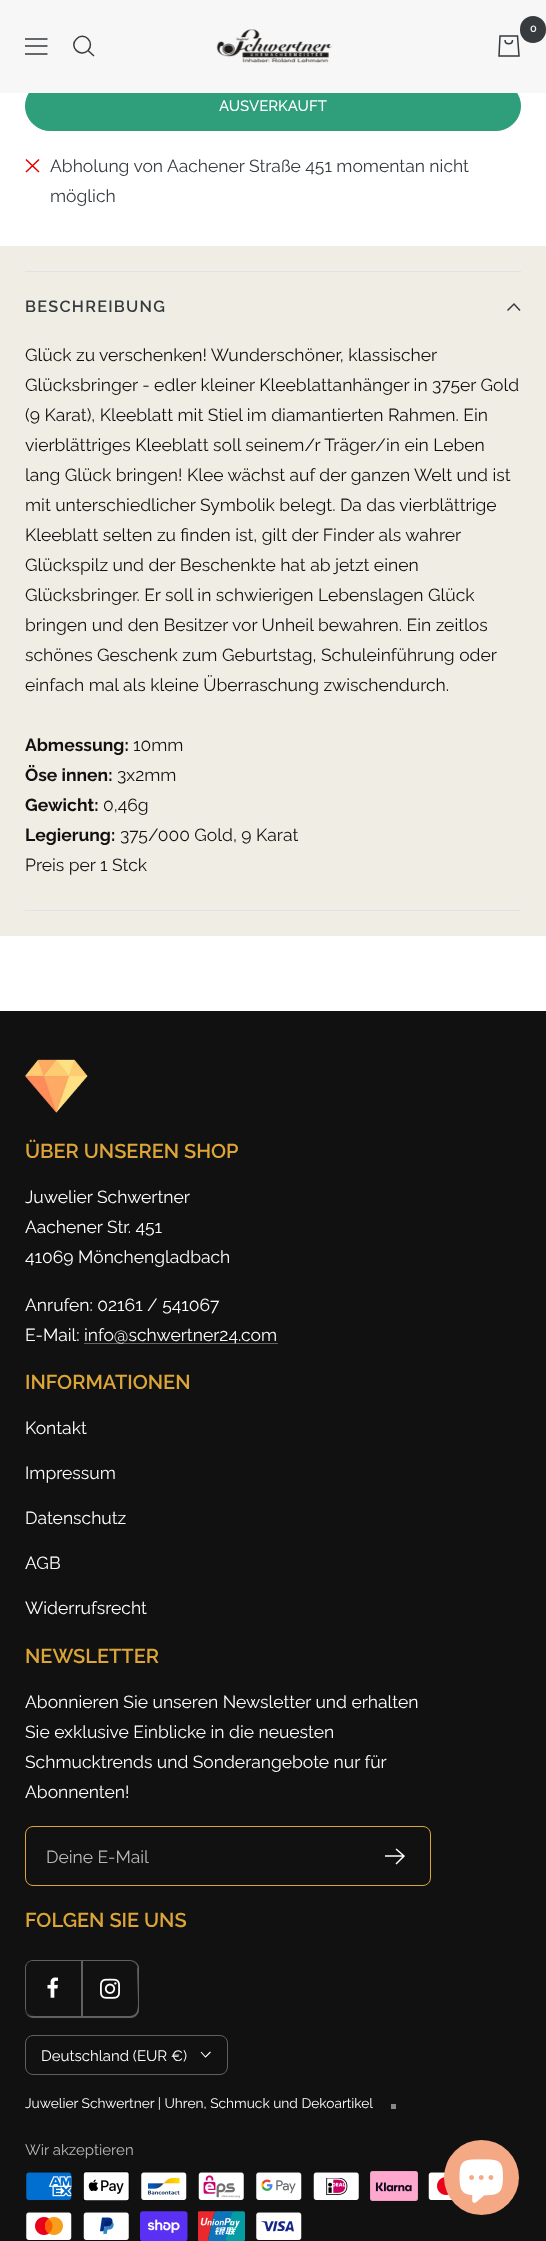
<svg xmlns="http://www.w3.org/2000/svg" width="546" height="2241">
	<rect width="100%" height="100%" fill="#FFFFFF" />
	<rect x="25.5" y="81.5" width="495" height="49" rx="24.5" fill="#2E9E7B" stroke="#2E9E7B" />
	<rect x="0" y="0" width="546" height="93" fill="#F7F7F7" />
	<path d="M25 39H47.5M25 54H47.5ZM25 46H47.5Z" fill="none" stroke="#363B3F" stroke-width="1.5" />
	<path d="M88 50.5C95.5 42.5 84 31 76.5 39C68.5 46.5 80 58 88 50.5ZM88 50.5L94 56" fill="none" stroke="#363B3F" stroke-width="1.5" />
	<image x="216" y="29" width="117" height="34" href="assets/img1.png" />
	<rect x="520" y="16" width="26" height="27" rx="13" fill="#363B3F" />
	<text x="530" y="32" font-family="Raleway" font-size="11" font-weight="600" fill="#F7F7F7">0</text>
	<path d="M500 36H517.5L519 56H499ZM505 40C505 45 512.5 45 512.5 40" fill="none" stroke="#363B3F" stroke-width="1.5" />
	<text x="219" y="111" font-family="Raleway" font-size="15" font-weight="500" fill="#FFFFFF">AUSVERKAUFT</text>
	<path d="M26 159.5L39 172M26 172L39 159.5" fill="none" stroke="#E00000" stroke-width="1.5" />
	<g font-family="Raleway" font-size="17.5" fill="#363B3F">
		<text x="50" y="172">Abholung von Aachener Straße 451 momentan nicht</text>
		<text x="50" y="202">möglich</text>
	</g>
	<rect x="0" y="246" width="546" height="690" fill="#F0EEE4" />
	<rect x="25" y="271" width="496" height="1" fill="#E1E2E2" />
	<rect x="25" y="910" width="496" height="1" fill="#E1E2E2" />
	<text x="25" y="312" font-family="Raleway" font-size="16.25" font-weight="600" letter-spacing="1.25" fill="#363B3F">BESCHREIBUNG</text>
	<path d="M520 310.5L514 304L507.5 310.5" fill="none" stroke="#363B3F" stroke-width="1.5" />
	<g font-family="Raleway" font-size="17.5" fill="#111111">
		<text x="25" y="361">Glück zu verschenken! Wunderschöner, klassischer</text>
		<text x="25" y="391">Glücksbringer - edler kleiner Kleeblattanhänger in 375er Gold</text>
		<text x="25" y="421">(9 Karat), Kleeblatt mit Stiel im diamantierten Rahmen. Ein</text>
		<text x="25" y="451">vierblättriges Kleeblatt soll seinem/r Träger/in ein Leben</text>
		<text x="25" y="481">lang Glück bringen! Klee wächst auf der ganzen Welt und ist</text>
		<text x="25" y="511">mit unterschiedlicher Symbolik belegt. Da das vierblättrige</text>
		<text x="25" y="541">Kleeblatt selten zu finden ist, gilt der Finder als wahrer</text>
		<text x="25" y="571">Glückspilz und der Beschenkte hat ab jetzt einen</text>
		<text x="25" y="601">Glücksbringer. Er soll in schwierigen Lebenslagen Glück</text>
		<text x="25" y="631">bringen und den Besitzer vor Unheil bewahren. Ein zeitlos</text>
		<text x="25" y="661">schönes Geschenk zum Geburtstag, Schuleinführung oder</text>
		<text x="25" y="691">einfach mal als kleine Überraschung zwischendurch.</text>
	</g>
	<text x="25" y="751" font-family="Raleway" font-size="17.5" font-weight="700" fill="#111111">Abmessung:</text>
	<text x="133" y="751" font-family="Raleway" font-size="17.5" fill="#111111">10mm</text>
	<text x="25" y="781" font-family="Raleway" font-size="17.5" font-weight="700" fill="#111111">Öse innen:</text>
	<text x="117" y="781" font-family="Raleway" font-size="17.5" fill="#111111">3x2mm</text>
	<text x="25" y="811" font-family="Raleway" font-size="17.5" font-weight="700" fill="#111111">Gewicht:</text>
	<text x="103" y="811" font-family="Raleway" font-size="17.5" fill="#111111">0,46g</text>
	<text x="25" y="841" font-family="Raleway" font-size="17.5" font-weight="700" fill="#111111">Legierung:</text>
	<g font-family="Raleway" font-size="17.5" fill="#111111">
		<text x="120" y="841">375/000 Gold, 9 Karat</text>
		<text x="25" y="871">Preis per 1 Stck</text>
	</g>
	<rect x="0" y="1011" width="546" height="1230" fill="#111111" />
	<image x="25" y="1059" width="63" height="54" href="assets/img2.png" />
	<text x="25" y="1158" font-family="Raleway" font-size="20" font-weight="600" fill="#DCA537">ÜBER UNSEREN SHOP</text>
	<g font-family="Raleway" font-size="17.5" fill="#FFFFFF">
		<text x="25" y="1203">Juwelier Schwertner</text>
		<text x="25" y="1233">Aachener Str. 451</text>
		<text x="25" y="1263">41069 Mönchengladbach</text>
		<text x="25" y="1311">Anrufen: 02161 / 541067</text>
		<text x="25" y="1341">E-Mail:</text>
	</g>
	<rect x="84" y="1343" width="194" height="1" fill="#646464" />
	<text x="84" y="1341" font-family="Raleway" font-size="17.5" fill="#FFFFFF">info@schwertner24.com</text>
	<text x="25" y="1389" font-family="Raleway" font-size="20" font-weight="600" fill="#DCA537">INFORMATIONEN</text>
	<g font-family="Raleway" font-size="17.5" fill="#FFFFFF">
		<text x="25" y="1434">Kontakt</text>
		<text x="25" y="1479">Impressum</text>
		<text x="25" y="1524">Datenschutz</text>
		<text x="25" y="1569">AGB</text>
		<text x="25" y="1614">Widerrufsrecht</text>
	</g>
	<text x="25" y="1663" font-family="Raleway" font-size="20" font-weight="600" fill="#DCA537">NEWSLETTER</text>
	<g font-family="Raleway" font-size="17.5" fill="#FFFFFF">
		<text x="25" y="1708">Abonnieren Sie unseren Newsletter und erhalten</text>
		<text x="25" y="1738">Sie exklusive Einblicke in die neuesten</text>
		<text x="25" y="1768">Schmucktrends und Sonderangebote nur für</text>
		<text x="25" y="1798">Abonnenten!</text>
	</g>
	<rect x="25.5" y="1826.5" width="405" height="59" rx="7.5" fill="none" stroke="#DCA537" />
	<text x="46" y="1863" font-family="Raleway" font-size="17.5" fill="#B8B8B8">Deine E-Mail</text>
	<path d="M385 1856H404M396 1849L404 1856L396 1864" fill="none" stroke="#FFFFFF" stroke-width="1.5" />
	<text x="25" y="1927" font-family="Raleway" font-size="20" font-weight="600" fill="#DCA537">FOLGEN SIE UNS</text>
	<path d="M25 2009V2010C25 2014 29 2018 33 2018H81V2016H32C28 2016 25 2013 25 2009Z" fill="#606060" />
	<rect x="81" y="1960" width="2" height="56" fill="#606060" />
	<path d="M32 1961H81V1960H33C29 1960 25 1964 25 1968V1969C25 1965 28 1961 32 1961Z" fill="#606060" />
	<path d="M33 1960C29 1960 25 1964 25 1968V2008C25 2012 29 2016 33 2016H34C30 2016 26 2013 26 2009V1968C26 1963 30 1960 34 1960Z" fill="#606060" />
	<image x="47" y="1977" width="11" height="21" href="assets/img3.png" />
	<path d="M83 2016V2018H131C135 2018 139 2014 139 2010V1969C139 1966 138 1964 135 1962C137 1964 138 1966 138 1968V2009C138 2013 134 2016 130 2016Z" fill="#606060" />
	<path d="M81 1961V2018H130C134 2018 138 2014 138 2010V1969L137 1966L138 2002C138 2007 138 2015 132 2016H81Z" fill="#606060" />
	<path d="M132 2016C136 2015 139 2012 139 2008V1968C139 1964 135 1960 131 1960H130C134 1960 138 1963 138 1968V2009C138 2012 135 2015 132 2016Z" fill="#606060" />
	<path d="M81 1961H130C134 1961 138 1965 138 1969V1968C138 1964 134 1960 130 1960H81Z" fill="#606060" />
	<image x="100" y="1978" width="20" height="21" href="assets/img4.png" />
	<rect x="25.5" y="2035.5" width="202" height="39" rx="7.5" fill="none" stroke="#606060" />
	<text x="41" y="2061" font-family="Raleway" font-size="15" fill="#FFFFFF">Deutschland (EUR €)</text>
	<path d="M201 2052L205.5 2057L210.5 2052" fill="none" stroke="#FFFFFF" stroke-width="1.1" />
	<text x="25" y="2108" font-family="Raleway" font-size="13.75" fill="#FFFFFF">Juwelier Schwertner | Uhren, Schmuck und Dekoartikel</text>
	<rect x="391" y="2104" width="5" height="5" fill="#888888" />
	<text x="25" y="2155" font-family="Raleway" font-size="15" fill="#B8B8B8">Wir akzeptieren</text>
	<image x="26" y="2172" width="46" height="28" href="assets/img5.png" />
	<image x="83" y="2171" width="47" height="30" href="assets/img6.png" />
	<image x="141" y="2172" width="46" height="28" href="assets/img7.png" />
	<image x="198" y="2172" width="46" height="28" href="assets/img8.png" />
	<image x="256" y="2172" width="46" height="28" href="assets/img9.png" />
	<image x="313" y="2172" width="46" height="28" href="assets/img10.png" />
	<image x="370" y="2171" width="48" height="30" href="assets/img11.png" />
	<image x="428" y="2172" width="24" height="28" href="assets/img12.png" />
	<image x="26" y="2212" width="46" height="28" href="assets/img13.png" />
	<image x="83" y="2212" width="46" height="28" href="assets/img14.png" />
	<image x="140" y="2211" width="48" height="30" href="assets/img15.png" />
	<image x="198" y="2211" width="47" height="30" href="assets/img16.png" />
	<image x="256" y="2212" width="46" height="28" href="assets/img17.png" />
	<circle cx="481.5" cy="2177.5" r="37.5" fill="#F4A884" />
	<image x="459" y="2159" width="44" height="44" href="assets/img18.png" />
</svg>
